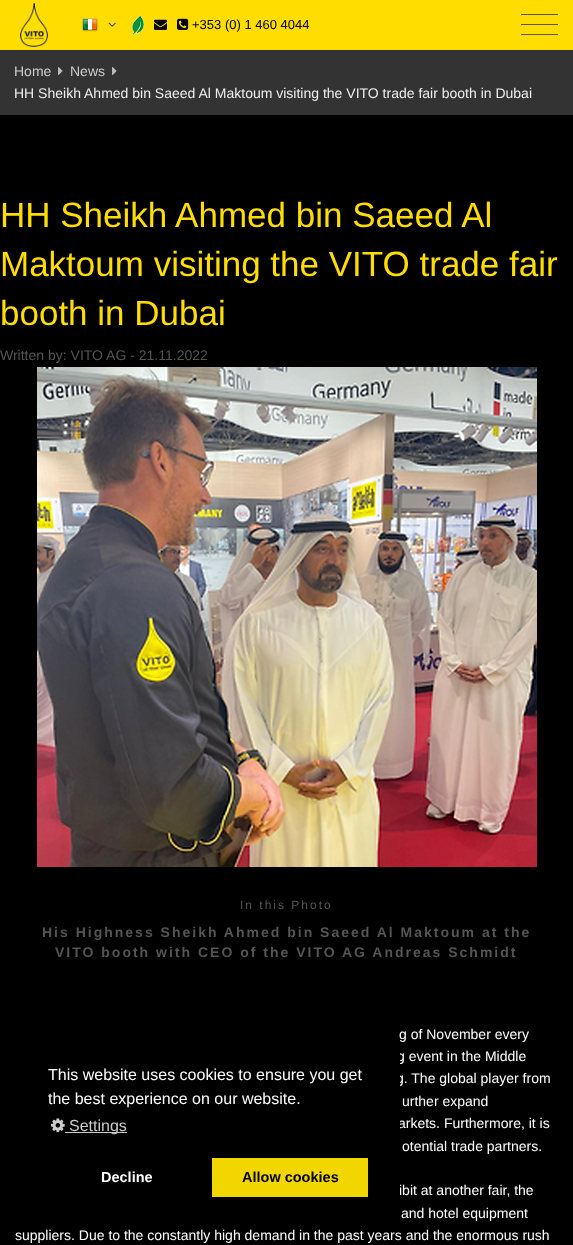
<svg xmlns="http://www.w3.org/2000/svg" width="573" height="1245">
	<rect width="100%" height="100%" fill="#FFDD00" />
	<image x="20" y="3" width="28" height="44" href="assets/img1.png" />
	<image x="82" y="18" width="16" height="14" href="assets/img2.png" />
	<image x="108" y="22" width="8" height="5" href="assets/img3.png" />
	<image x="132" y="15" width="12" height="20" href="assets/img4.png" />
	<image x="154" y="19" width="13" height="11" href="assets/img5.png" />
	<image x="177" y="18" width="12" height="12" href="assets/img6.png" />
	<text x="192" y="29" font-family="Liberation Sans" font-size="13" fill="#000000">+353 (0) 1 460 4044</text>
	<rect x="521" y="14" width="37" height="1" fill="#555555" />
	<rect x="521" y="24" width="37" height="1" fill="#555555" />
	<rect x="521" y="34" width="37" height="1" fill="#555555" />
	<rect x="0" y="50" width="573" height="65" fill="#333333" />
	<text x="14" y="76" font-family="Liberation Sans" font-size="14" fill="#CCCCCC">Home</text>
	<image x="58" y="67" width="5" height="8" href="assets/img7.png" />
	<text x="70" y="76" font-family="Liberation Sans" font-size="14" fill="#CCCCCC">News</text>
	<image x="112" y="67" width="5" height="8" href="assets/img7.png" />
	<text x="14" y="98" font-family="Liberation Sans" font-size="14" fill="#EEEEEE">HH Sheikh Ahmed bin Saeed Al Maktoum visiting the VITO trade fair booth in Dubai</text>
	<rect x="0" y="115" width="573" height="1130" fill="#000000" />
	<g font-family="Liberation Sans" font-size="35" fill="#FFDD00">
		<text x="0" y="227">HH Sheikh Ahmed bin Saeed Al</text>
		<text x="0" y="276">Maktoum visiting the VITO trade fair</text>
		<text x="0" y="325">booth in Dubai</text>
	</g>
	<text x="0" y="360" font-family="Liberation Sans" font-size="14" fill="#555555">Written by: VITO AG - 21.11.2022</text>
	<image x="37" y="367" width="500" height="500" href="assets/img8.png" />
	<text x="240" y="909" font-family="Liberation Sans" font-size="12" letter-spacing="2" fill="#555555">In this Photo</text>
	<g font-family="Liberation Sans" font-size="14" font-weight="700" letter-spacing="2" fill="#555555">
		<text x="42" y="937">His Highness Sheikh Ahmed bin Saeed Al Maktoum at the</text>
		<text x="55" y="957">VITO booth with CEO of the VITO AG Andreas Schmidt</text>
	</g>
	<g font-family="Liberation Sans" font-size="14" fill="#FFFFFF">
		<text x="399" y="1039">g of November every</text>
		<text x="397" y="1061">g event in the Middle</text>
		<text x="396" y="1083">g. The global player from</text>
		<text x="402" y="1106">urther expand</text>
		<text x="398" y="1128">arkets. Furthermore, it is</text>
		<text x="402" y="1151">otential trade partners.</text>
		<text x="399" y="1195">ibit at another fair, the</text>
		<text x="401" y="1218">and hotel equipment</text>
		<text x="15" y="1240">suppliers. Due to the constantly high demand in the past years and the enormous rush</text>
	</g>
	<rect x="396" y="1053" width="4" height="142" fill="#000000" />
	<g font-family="Liberation Sans" font-size="16" fill="#FFFFFF">
		<text x="48" y="1080">This website uses cookies to ensure you get</text>
		<text x="48" y="1104">the best experience on our website.</text>
	</g>
	<image x="51" y="1118" width="14" height="15" href="assets/img9.png" />
	<rect x="65" y="1132" width="62" height="1" fill="#CCCCCC" />
	<text x="69" y="1131" font-family="Liberation Sans" font-size="16" fill="#CCCCCC">Settings</text>
	<text x="101" y="1182" font-family="Liberation Sans" font-size="14.5" font-weight="700" fill="#FFFFFF">Decline</text>
	<rect x="212" y="1158" width="156" height="39" fill="#F1D600" />
	<text x="242" y="1182" font-family="Liberation Sans" font-size="14.5" font-weight="700" fill="#000000">Allow cookies</text>
</svg>
